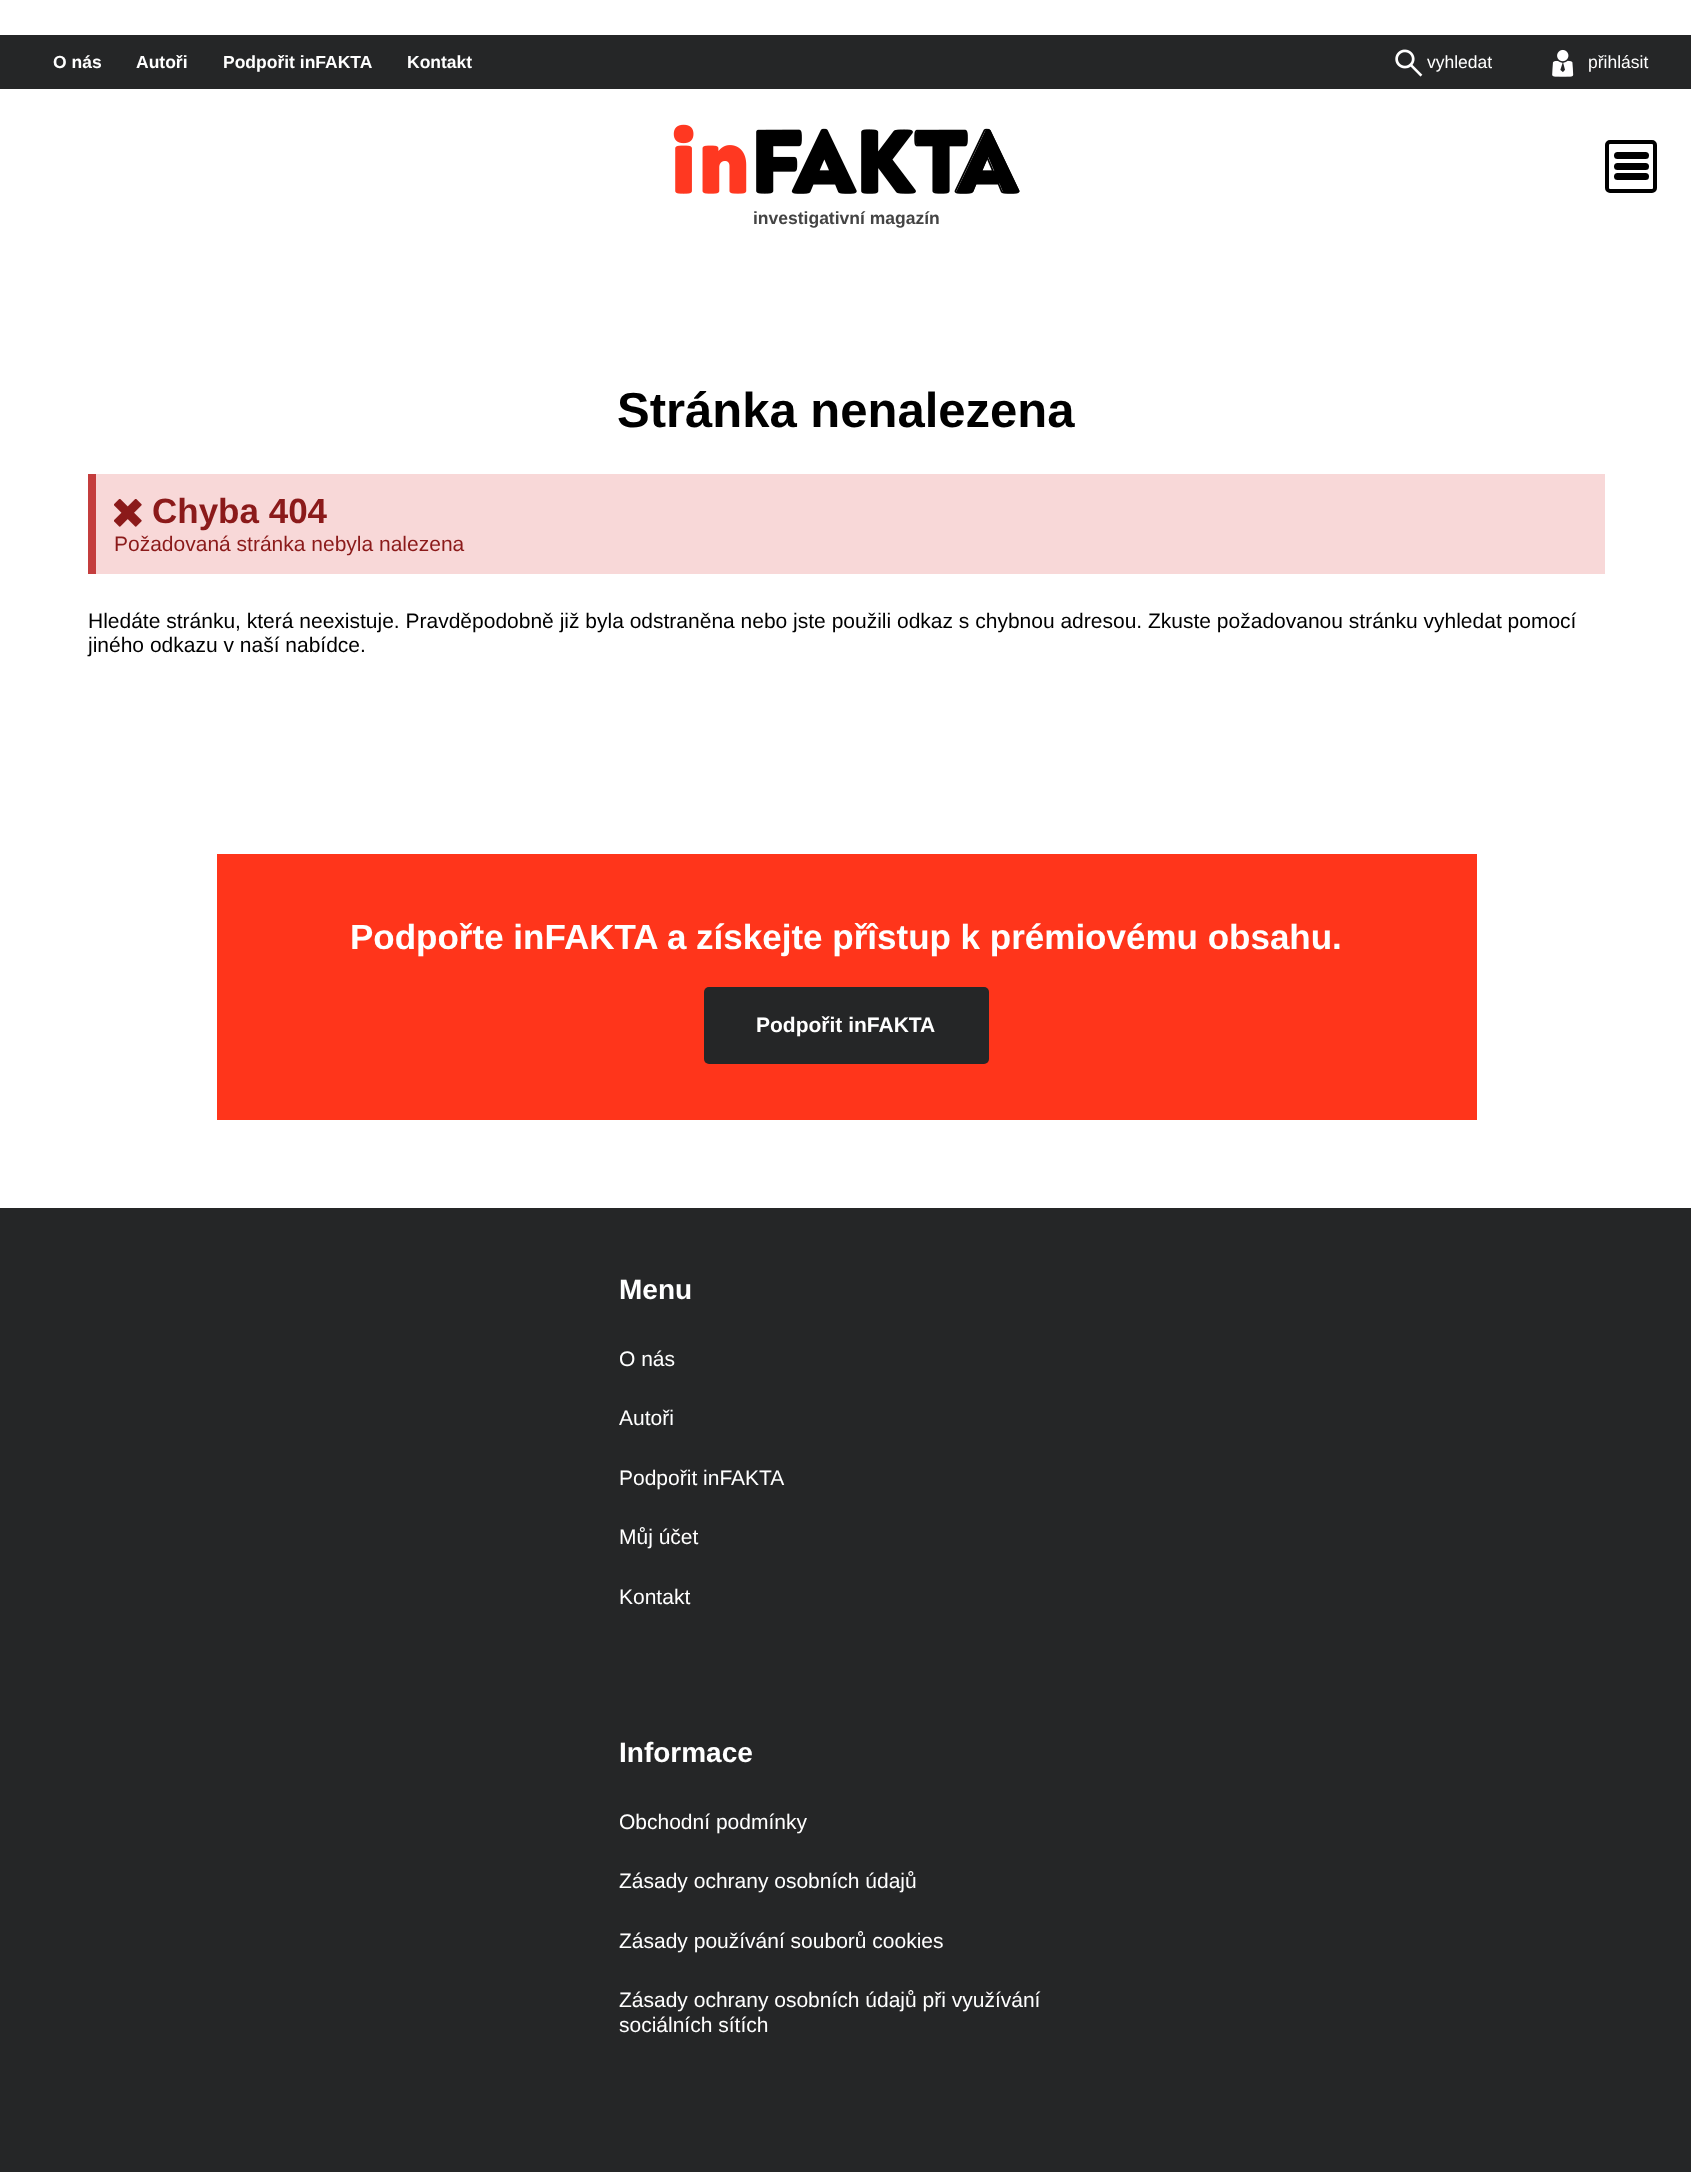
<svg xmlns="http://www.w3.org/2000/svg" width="1691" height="2172">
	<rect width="100%" height="100%" fill="#FFFFFF" />
	<rect x="0" y="35" width="1691" height="54" fill="#252627" />
	<g font-family="Liberation Sans" font-size="17.5" font-weight="700" fill="#FFFFFF">
		<text x="53" y="68">O nás</text>
		<text x="136" y="68">Autoři</text>
		<text x="223" y="68">Podpořit inFAKTA</text>
		<text x="407" y="68">Kontakt</text>
	</g>
	<image x="1395" y="49" width="28" height="28" href="assets/img1.png" />
	<text x="1427" y="68" font-family="Liberation Sans" font-size="17.5" fill="#FFFFFF">vyhledat</text>
	<image x="1552" y="49" width="22" height="28" href="assets/img2.png" />
	<text x="1588" y="68" font-family="Liberation Sans" font-size="17.5" fill="#FFFFFF">přihlásit</text>
	<rect x="1607" y="142" width="48" height="49" rx="3" fill="none" stroke="#000000" stroke-width="4" />
	<rect x="1614" y="173" width="35" height="7" rx="3.5" fill="#000000" />
	<rect x="1614" y="163" width="35" height="7" rx="3.5" fill="#000000" />
	<rect x="1614" y="152" width="35" height="7" rx="3.5" fill="#000000" />
	<image x="673" y="124" width="347" height="70" href="assets/img3.png" />
	<text x="753" y="224" font-family="Liberation Sans" font-size="17.5" font-weight="700" fill="#444444">investigativní magazín</text>
	<text x="617" y="427" font-family="Liberation Sans" font-size="49" font-weight="700" fill="#000000">Stránka nenalezena</text>
	<rect x="96" y="474" width="1509" height="100" fill="#F8D8D8" />
	<rect x="88" y="474" width="8" height="100" fill="#C43D3D" />
	<image x="114" y="499" width="28" height="28" href="assets/img4.png" />
	<text x="152" y="523" font-family="Liberation Sans" font-size="35" font-weight="700" fill="#8B1A1A">Chyba 404</text>
	<text x="114" y="551" font-family="Liberation Sans" font-size="21" fill="#8B1A1A">Požadovaná stránka nebyla nalezena</text>
	<g font-family="Liberation Sans" font-size="21" fill="#000000">
		<text x="88" y="628">Hledáte stránku, která neexistuje. Pravděpodobně již byla odstraněna nebo jste použili odkaz s chybnou adresou. Zkuste požadovanou stránku vyhledat pomocí</text>
		<text x="88" y="652">jiného odkazu v naší nabídce.</text>
	</g>
	<rect x="217" y="854" width="1260" height="266" fill="#FF351B" />
	<text x="350" y="949" font-family="Liberation Sans" font-size="35" font-weight="700" fill="#FFFFFF">Podpořte inFAKTA a získejte přîstup k prémiovému obsahu.</text>
	<rect x="704" y="987" width="285" height="77" rx="5" fill="#252627" />
	<text x="756" y="1032" font-family="Liberation Sans" font-size="21" font-weight="700" fill="#FFFFFF">Podpořit inFAKTA</text>
	<rect x="0" y="1208" width="1691" height="964" fill="#252627" />
	<text x="619" y="1299" font-family="Liberation Sans" font-size="28" font-weight="700" fill="#FFFFFF">Menu</text>
	<g font-family="Liberation Sans" font-size="21" fill="#FFFFFF">
		<text x="619" y="1366">O nás</text>
		<text x="619" y="1425">Autoři</text>
		<text x="619" y="1485">Podpořit inFAKTA</text>
		<text x="619" y="1544">Můj účet</text>
		<text x="619" y="1604">Kontakt</text>
	</g>
	<text x="619" y="1762" font-family="Liberation Sans" font-size="28" font-weight="700" fill="#FFFFFF">Informace</text>
	<g font-family="Liberation Sans" font-size="21" fill="#FFFFFF">
		<text x="619" y="1829">Obchodní podmínky</text>
		<text x="619" y="1888">Zásady ochrany osobních údajů</text>
		<text x="619" y="1948">Zásady používání souborů cookies</text>
		<text x="619" y="2007">Zásady ochrany osobních údajů při využívání</text>
		<text x="619" y="2032">sociálních sítích</text>
	</g>
</svg>
